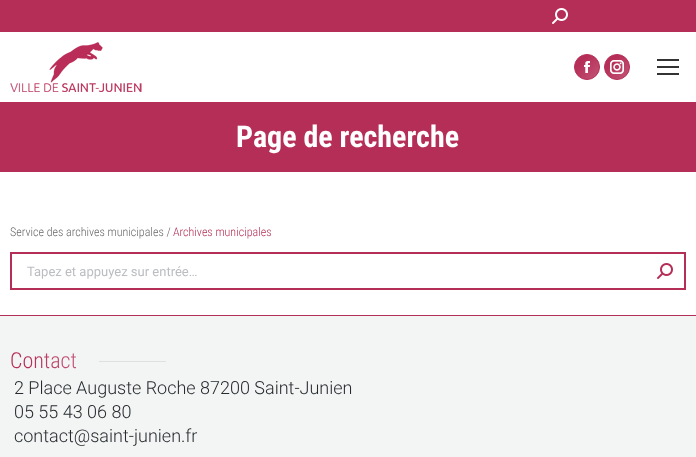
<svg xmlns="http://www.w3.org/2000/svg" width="696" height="457">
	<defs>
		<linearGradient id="g1" gradientUnits="userSpaceOnUse" x1="10" y1="361" x2="77" y2="361"><stop offset="0.3" stop-color="#B52E57" /><stop offset="1" stop-color="#C45879" /></linearGradient>
		<linearGradient id="g2" gradientUnits="userSpaceOnUse" x1="574" y1="54" x2="600" y2="80"><stop offset="0.3" stop-color="#B52E57" /><stop offset="1" stop-color="#C45879" /></linearGradient>
		<linearGradient id="g3" gradientUnits="userSpaceOnUse" x1="604" y1="54" x2="630" y2="80"><stop offset="0.3" stop-color="#B52E57" /><stop offset="1" stop-color="#C45879" /></linearGradient>
	</defs>
	<rect width="100%" height="100%" fill="#FFFFFF" />
	<rect x="0" y="0" width="696" height="32" fill="#B52E57" />
	<image x="552" y="8" width="16" height="16" href="assets/img1.png" />
	<image x="10" y="42" width="132" height="50" href="assets/img2.png" />
	<circle cx="587" cy="67" r="12.5" fill="url(#g2)" stroke="#B52E57" />
	<image x="584" y="61" width="6" height="12" href="assets/img3.png" />
	<circle cx="617" cy="67" r="12.5" fill="url(#g3)" stroke="#B52E57" />
	<image x="610" y="60" width="14" height="14" href="assets/img4.png" />
	<rect x="657" y="59" width="22" height="2" fill="#333333" />
	<rect x="657" y="66" width="22" height="2" fill="#333333" />
	<rect x="657" y="73" width="22" height="2" fill="#333333" />
	<rect x="0" y="102" width="696" height="70" fill="#B52E57" />
	<text x="236" y="147" font-family="Roboto Condensed" font-size="30" font-weight="700" fill="#FFFFFF">Page de recherche</text>
	<text x="10" y="236" font-family="Roboto Condensed" font-size="12" font-weight="300" fill="#686868">Service des archives municipales /</text>
	<text x="173" y="236" font-family="Roboto Condensed" font-size="12" font-weight="300" fill="#B52E57">Archives municipales</text>
	<rect x="11" y="253" width="674" height="36" fill="none" stroke="#B52E57" stroke-width="2" />
	<text x="27" y="276" font-family="Roboto" font-size="13" fill="#BBBDC1">Tapez et appuyez sur entrée…</text>
	<image x="657" y="263" width="16" height="16" href="assets/img5.png" />
	<rect x="0" y="316" width="696" height="141" fill="#F3F4F4" />
	<rect x="0" y="315" width="696" height="1" fill="#B52E57" />
	<text x="10" y="368" font-family="Roboto Condensed" font-size="22" font-weight="300" fill="url(#g1)">Contact</text>
	<rect x="99" y="361" width="67" height="1" fill="#DEDFE0" />
	<g font-family="Roboto" font-size="18" font-weight="300" fill="#262B2E">
		<text x="14" y="394">2 Place Auguste Roche 87200 Saint-Junien</text>
		<text x="14" y="418">05 55 43 06 80</text>
		<text x="14" y="442">contact@saint-junien.fr</text>
	</g>
</svg>
